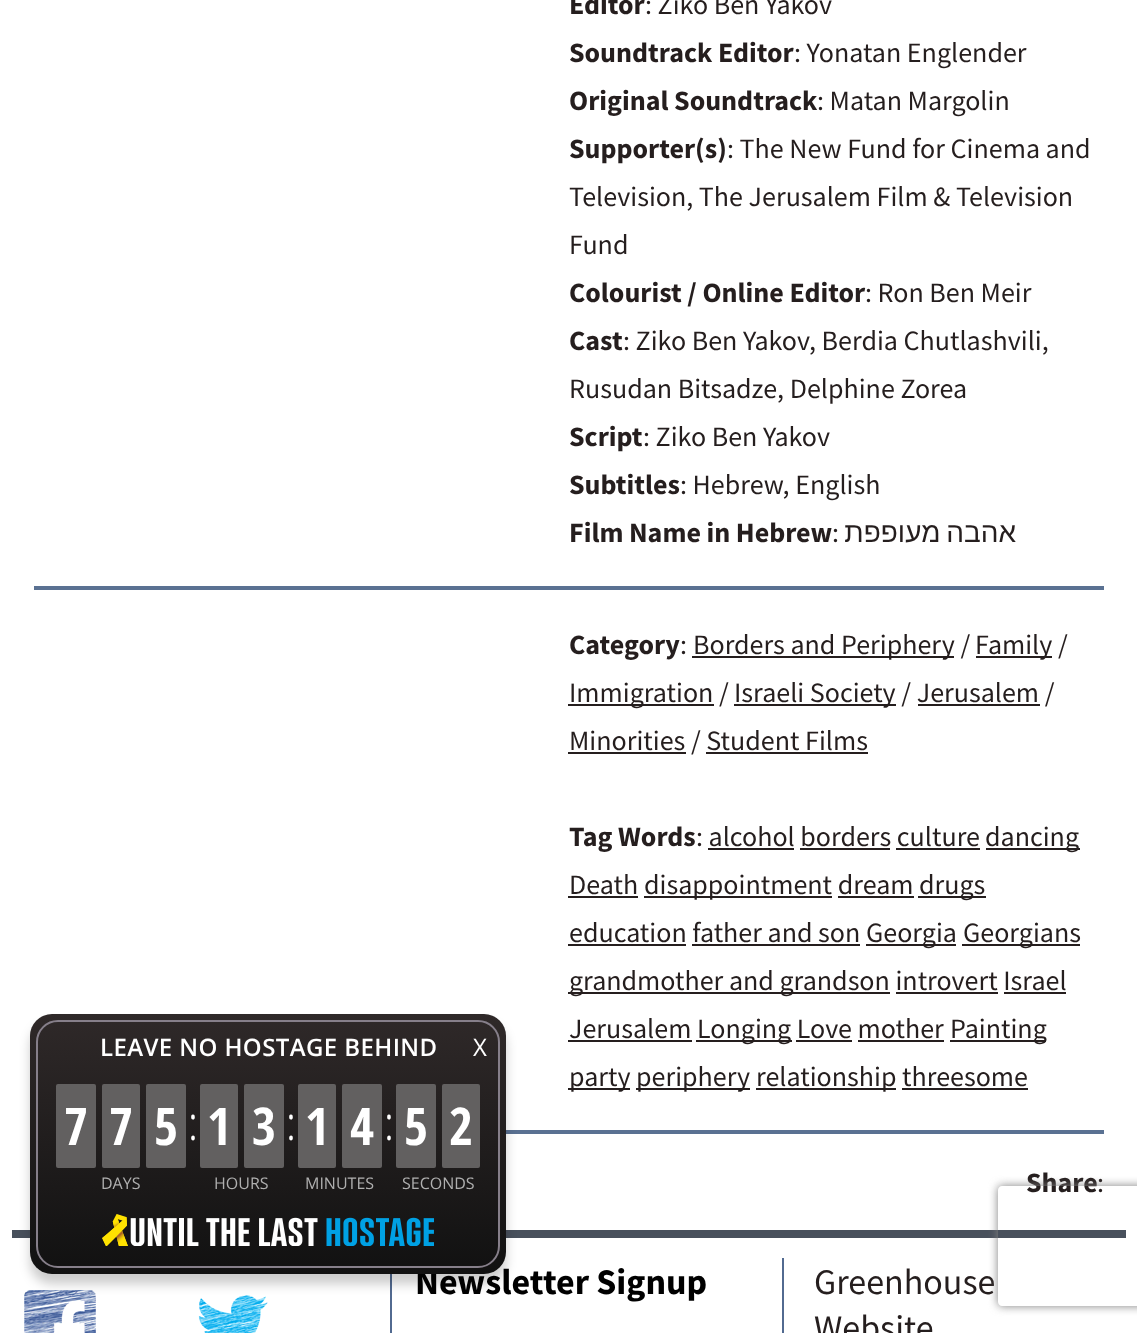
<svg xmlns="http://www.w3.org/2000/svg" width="1137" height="1333">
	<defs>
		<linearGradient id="g1" gradientUnits="userSpaceOnUse" x1="268" y1="1014" x2="268" y2="1274"><stop offset="0" stop-color="#2F2929" /><stop offset="1" stop-color="#111111" /></linearGradient>
		<clipPath id="clip1"><path d="M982 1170H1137V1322H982ZM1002 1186H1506C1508 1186 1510 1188 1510 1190V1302C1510 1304 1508 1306 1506 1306H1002C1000 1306 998 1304 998 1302V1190C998 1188 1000 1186 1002 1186Z" clip-rule="evenodd" /></clipPath>
	</defs>
	<rect width="100%" height="100%" fill="#FFFFFF" />
	<rect x="506" y="1130" width="598" height="4" fill="#5A7192" />
	<rect x="12" y="1230" width="1114" height="8" fill="#48505C" />
	<image x="24" y="1290" width="72" height="43" href="assets/img2.png" />
	<image x="198" y="1295" width="70" height="38" href="assets/img3.png" />
	<rect x="390" y="1274" width="2" height="59" fill="#526A90" />
	<rect x="30" y="1024" width="476" height="260" rx="22" fill="#000000" fill-opacity="0.2" filter="blur(5.5px)" />
	<text x="415" y="1294" font-family="Source Sans Pro" font-size="36" font-weight="700" fill="#000000">Newsletter Signup</text>
	<rect x="30" y="1014" width="476" height="260" rx="22" fill="url(#g1)" />
	<rect x="37" y="1021" width="462" height="246" rx="21" fill="none" stroke="#867F8A" stroke-width="2" />
	<text x="100" y="1056" font-family="Open Sans" font-size="24" font-weight="600" letter-spacing="0.4" fill="#FFFFFF">LEAVE NO HOSTAGE BEHIND</text>
	<rect x="56" y="1084" width="40" height="84" rx="2" fill="#626060" />
	<text x="64" y="1145" font-family="Open Sans Condensed" font-size="52" font-weight="700" fill="#FFFFFF">7</text>
	<rect x="102" y="1084" width="38" height="84" rx="2" fill="#626060" />
	<text x="109" y="1145" font-family="Open Sans Condensed" font-size="52" font-weight="700" fill="#FFFFFF">7</text>
	<rect x="146" y="1084" width="40" height="84" rx="2" fill="#626060" />
	<text x="154" y="1145" font-family="Open Sans Condensed" font-size="52" font-weight="700" fill="#FFFFFF">5</text>
	<text x="101" y="1189" font-family="Open Sans" font-size="16" fill="#AFAFAF">DAYS</text>
	<text x="188" y="1140" font-family="Open Sans Condensed" font-size="48" font-weight="300" fill="#FFFFFF">:</text>
	<rect x="200" y="1084" width="38" height="84" rx="2" fill="#626060" />
	<text x="207" y="1145" font-family="Open Sans Condensed" font-size="52" font-weight="700" fill="#FFFFFF">1</text>
	<rect x="244" y="1084" width="40" height="84" rx="2" fill="#626060" />
	<text x="252" y="1145" font-family="Open Sans Condensed" font-size="52" font-weight="700" fill="#FFFFFF">3</text>
	<text x="214" y="1189" font-family="Open Sans" font-size="16" fill="#AFAFAF">HOURS</text>
	<text x="286" y="1140" font-family="Open Sans Condensed" font-size="48" font-weight="300" fill="#FFFFFF">:</text>
	<rect x="298" y="1084" width="38" height="84" rx="2" fill="#626060" />
	<text x="305" y="1145" font-family="Open Sans Condensed" font-size="52" font-weight="700" fill="#FFFFFF">1</text>
	<rect x="342" y="1084" width="40" height="84" rx="2" fill="#626060" />
	<text x="350" y="1145" font-family="Open Sans Condensed" font-size="52" font-weight="700" fill="#FFFFFF">4</text>
	<text x="305" y="1189" font-family="Open Sans" font-size="16" fill="#AFAFAF">MINUTES</text>
	<text x="384" y="1140" font-family="Open Sans Condensed" font-size="48" font-weight="300" fill="#FFFFFF">:</text>
	<rect x="396" y="1084" width="40" height="84" rx="2" fill="#626060" />
	<text x="404" y="1145" font-family="Open Sans Condensed" font-size="52" font-weight="700" fill="#FFFFFF">5</text>
	<rect x="442" y="1084" width="38" height="84" rx="2" fill="#626060" />
	<text x="449" y="1145" font-family="Open Sans Condensed" font-size="52" font-weight="700" fill="#FFFFFF">2</text>
	<text x="402" y="1189" font-family="Open Sans" font-size="16" fill="#AFAFAF">SECONDS</text>
	<image x="102" y="1214" width="332" height="32" href="assets/img1.png" />
	<text x="473" y="1056" font-family="Open Sans" font-size="24" fill="#FFFFFF">X</text>
	<text x="569" y="14" font-family="Source Sans Pro" font-size="28" font-weight="700" fill="#251E1E">Editor</text>
	<text x="645" y="14" font-family="Source Sans Pro" font-size="28" fill="#251E1E">: Ziko Ben Yakov</text>
	<text x="569" y="62" font-family="Source Sans Pro" font-size="28" font-weight="700" fill="#251E1E">Soundtrack Editor</text>
	<text x="794" y="62" font-family="Source Sans Pro" font-size="28" fill="#251E1E">: Yonatan Englender</text>
	<text x="569" y="110" font-family="Source Sans Pro" font-size="28" font-weight="700" fill="#251E1E">Original Soundtrack</text>
	<text x="817" y="110" font-family="Source Sans Pro" font-size="28" fill="#251E1E">: Matan Margolin</text>
	<text x="569" y="158" font-family="Source Sans Pro" font-size="28" font-weight="700" fill="#251E1E">Supporter(s)</text>
	<g font-family="Source Sans Pro" font-size="28" fill="#251E1E">
		<text x="727" y="158">: The New Fund for Cinema and</text>
		<text x="569" y="206">Television, The Jerusalem Film &amp; Television</text>
		<text x="569" y="254">Fund</text>
	</g>
	<text x="569" y="302" font-family="Source Sans Pro" font-size="28" font-weight="700" fill="#251E1E">Colourist / Online Editor</text>
	<text x="865" y="302" font-family="Source Sans Pro" font-size="28" fill="#251E1E">: Ron Ben Meir</text>
	<text x="569" y="350" font-family="Source Sans Pro" font-size="28" font-weight="700" fill="#251E1E">Cast</text>
	<g font-family="Source Sans Pro" font-size="28" fill="#251E1E">
		<text x="623" y="350">: Ziko Ben Yakov, Berdia Chutlashvili,</text>
		<text x="569" y="398">Rusudan Bitsadze, Delphine Zorea</text>
	</g>
	<text x="569" y="446" font-family="Source Sans Pro" font-size="28" font-weight="700" fill="#251E1E">Script</text>
	<text x="643" y="446" font-family="Source Sans Pro" font-size="28" fill="#251E1E">: Ziko Ben Yakov</text>
	<text x="569" y="494" font-family="Source Sans Pro" font-size="28" font-weight="700" fill="#251E1E">Subtitles</text>
	<text x="680" y="494" font-family="Source Sans Pro" font-size="28" fill="#251E1E">: Hebrew, English</text>
	<text x="569" y="542" font-family="Source Sans Pro" font-size="28" font-weight="700" fill="#251E1E">Film Name in Hebrew</text>
	<text x="832" y="542" font-family="Source Sans Pro" font-size="28" fill="#251E1E">:</text>
	<text x="1016" y="542" word-spacing="-2" font-family="Liberation Sans" font-size="28" direction="rtl" fill="#251E1E">אהבה מעופפת</text>
	<rect x="34" y="586" width="1070" height="4" fill="#5A7192" />
	<text x="569" y="654" font-family="Source Sans Pro" font-size="28" font-weight="700" fill="#251E1E">Category</text>
	<text x="680" y="654" font-family="Source Sans Pro" font-size="28" fill="#251E1E">:</text>
	<rect x="692" y="656" width="262" height="2" fill="#251E1E" />
	<text x="693" y="654" font-family="Source Sans Pro" font-size="28" fill="#251E1E">Borders and Periphery /</text>
	<rect x="976" y="656" width="76" height="2" fill="#251E1E" />
	<text x="975" y="654" font-family="Source Sans Pro" font-size="28" fill="#251E1E">Family /</text>
	<rect x="568" y="704" width="146" height="2" fill="#251E1E" />
	<text x="569" y="702" font-family="Source Sans Pro" font-size="28" fill="#251E1E">Immigration /</text>
	<rect x="734" y="704" width="162" height="2" fill="#251E1E" />
	<text x="734" y="702" font-family="Source Sans Pro" font-size="28" fill="#251E1E">Israeli Society / Jerusalem /</text>
	<rect x="918" y="704" width="122" height="2" fill="#251E1E" />
	<rect x="568" y="752" width="118" height="2" fill="#251E1E" />
	<text x="569" y="750" font-family="Source Sans Pro" font-size="28" fill="#251E1E">Minorities / Student Films</text>
	<rect x="706" y="752" width="162" height="2" fill="#251E1E" />
	<text x="569" y="846" font-family="Source Sans Pro" font-size="28" font-weight="700" fill="#251E1E">Tag Words</text>
	<text x="696" y="846" font-family="Source Sans Pro" font-size="28" fill="#251E1E">: alcohol borders culture</text>
	<rect x="986" y="848" width="94" height="2" fill="#251E1E" />
	<text x="985" y="846" font-family="Source Sans Pro" font-size="28" fill="#251E1E">dancing</text>
	<rect x="708" y="848" width="86" height="2" fill="#251E1E" />
	<rect x="800" y="848" width="90" height="2" fill="#251E1E" />
	<rect x="896" y="848" width="84" height="2" fill="#251E1E" />
	<text x="569" y="894" font-family="Source Sans Pro" font-size="28" fill="#251E1E">Death</text>
	<rect x="568" y="896" width="70" height="2" fill="#251E1E" />
	<rect x="644" y="896" width="188" height="2" fill="#251E1E" />
	<text x="644" y="894" font-family="Source Sans Pro" font-size="28" fill="#251E1E">disappointment dream</text>
	<rect x="918" y="896" width="68" height="2" fill="#251E1E" />
	<text x="919" y="894" font-family="Source Sans Pro" font-size="28" fill="#251E1E">drugs</text>
	<rect x="838" y="896" width="76" height="2" fill="#251E1E" />
	<text x="569" y="942" font-family="Source Sans Pro" font-size="28" fill="#251E1E">education father and son</text>
	<rect x="568" y="944" width="118" height="2" fill="#251E1E" />
	<rect x="866" y="944" width="90" height="2" fill="#251E1E" />
	<text x="866" y="942" font-family="Source Sans Pro" font-size="28" fill="#251E1E">Georgia</text>
	<rect x="962" y="944" width="118" height="2" fill="#251E1E" />
	<text x="963" y="942" font-family="Source Sans Pro" font-size="28" fill="#251E1E">Georgians</text>
	<rect x="692" y="944" width="168" height="2" fill="#251E1E" />
	<rect x="568" y="992" width="322" height="2" fill="#251E1E" />
	<text x="569" y="990" font-family="Source Sans Pro" font-size="28" fill="#251E1E">grandmother and grandson introvert Israel</text>
	<rect x="896" y="992" width="102" height="2" fill="#251E1E" />
	<rect x="1004" y="992" width="62" height="2" fill="#251E1E" />
	<text x="569" y="1038" font-family="Source Sans Pro" font-size="28" fill="#251E1E">Jerusalem</text>
	<rect x="568" y="1040" width="124" height="2" fill="#251E1E" />
	<rect x="696" y="1040" width="96" height="2" fill="#251E1E" />
	<text x="697" y="1038" font-family="Source Sans Pro" font-size="28" fill="#251E1E">Longing Love mother</text>
	<rect x="950" y="1040" width="96" height="2" fill="#251E1E" />
	<text x="950" y="1038" font-family="Source Sans Pro" font-size="28" fill="#251E1E">Painting</text>
	<rect x="796" y="1040" width="56" height="2" fill="#251E1E" />
	<rect x="858" y="1040" width="86" height="2" fill="#251E1E" />
	<rect x="568" y="1088" width="62" height="2" fill="#251E1E" />
	<text x="569" y="1086" font-family="Source Sans Pro" font-size="28" fill="#251E1E">party</text>
	<rect x="636" y="1088" width="114" height="2" fill="#251E1E" />
	<text x="636" y="1086" font-family="Source Sans Pro" font-size="28" fill="#251E1E">periphery</text>
	<rect x="756" y="1088" width="140" height="2" fill="#251E1E" />
	<text x="756" y="1086" font-family="Source Sans Pro" font-size="28" fill="#251E1E">relationship threesome</text>
	<rect x="902" y="1088" width="126" height="2" fill="#251E1E" />
	<text x="1026" y="1192" font-family="Source Sans Pro" font-size="28" font-weight="700" fill="#251E1E">Share</text>
	<text x="1097" y="1192" font-family="Source Sans Pro" font-size="28" fill="#251E1E">:</text>
	<rect x="782" y="1258" width="2" height="75" fill="#526A90" />
	<g font-family="Source Sans Pro" font-size="36" fill="#251E1E">
		<text x="814" y="1294">Greenhouse</text>
		<text x="814" y="1340">Website</text>
	</g>
	<g clip-path="url(#clip1)">
		<rect x="998" y="1186" width="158" height="120" rx="4" fill="#808080" filter="blur(5px)" />
	</g>
</svg>
